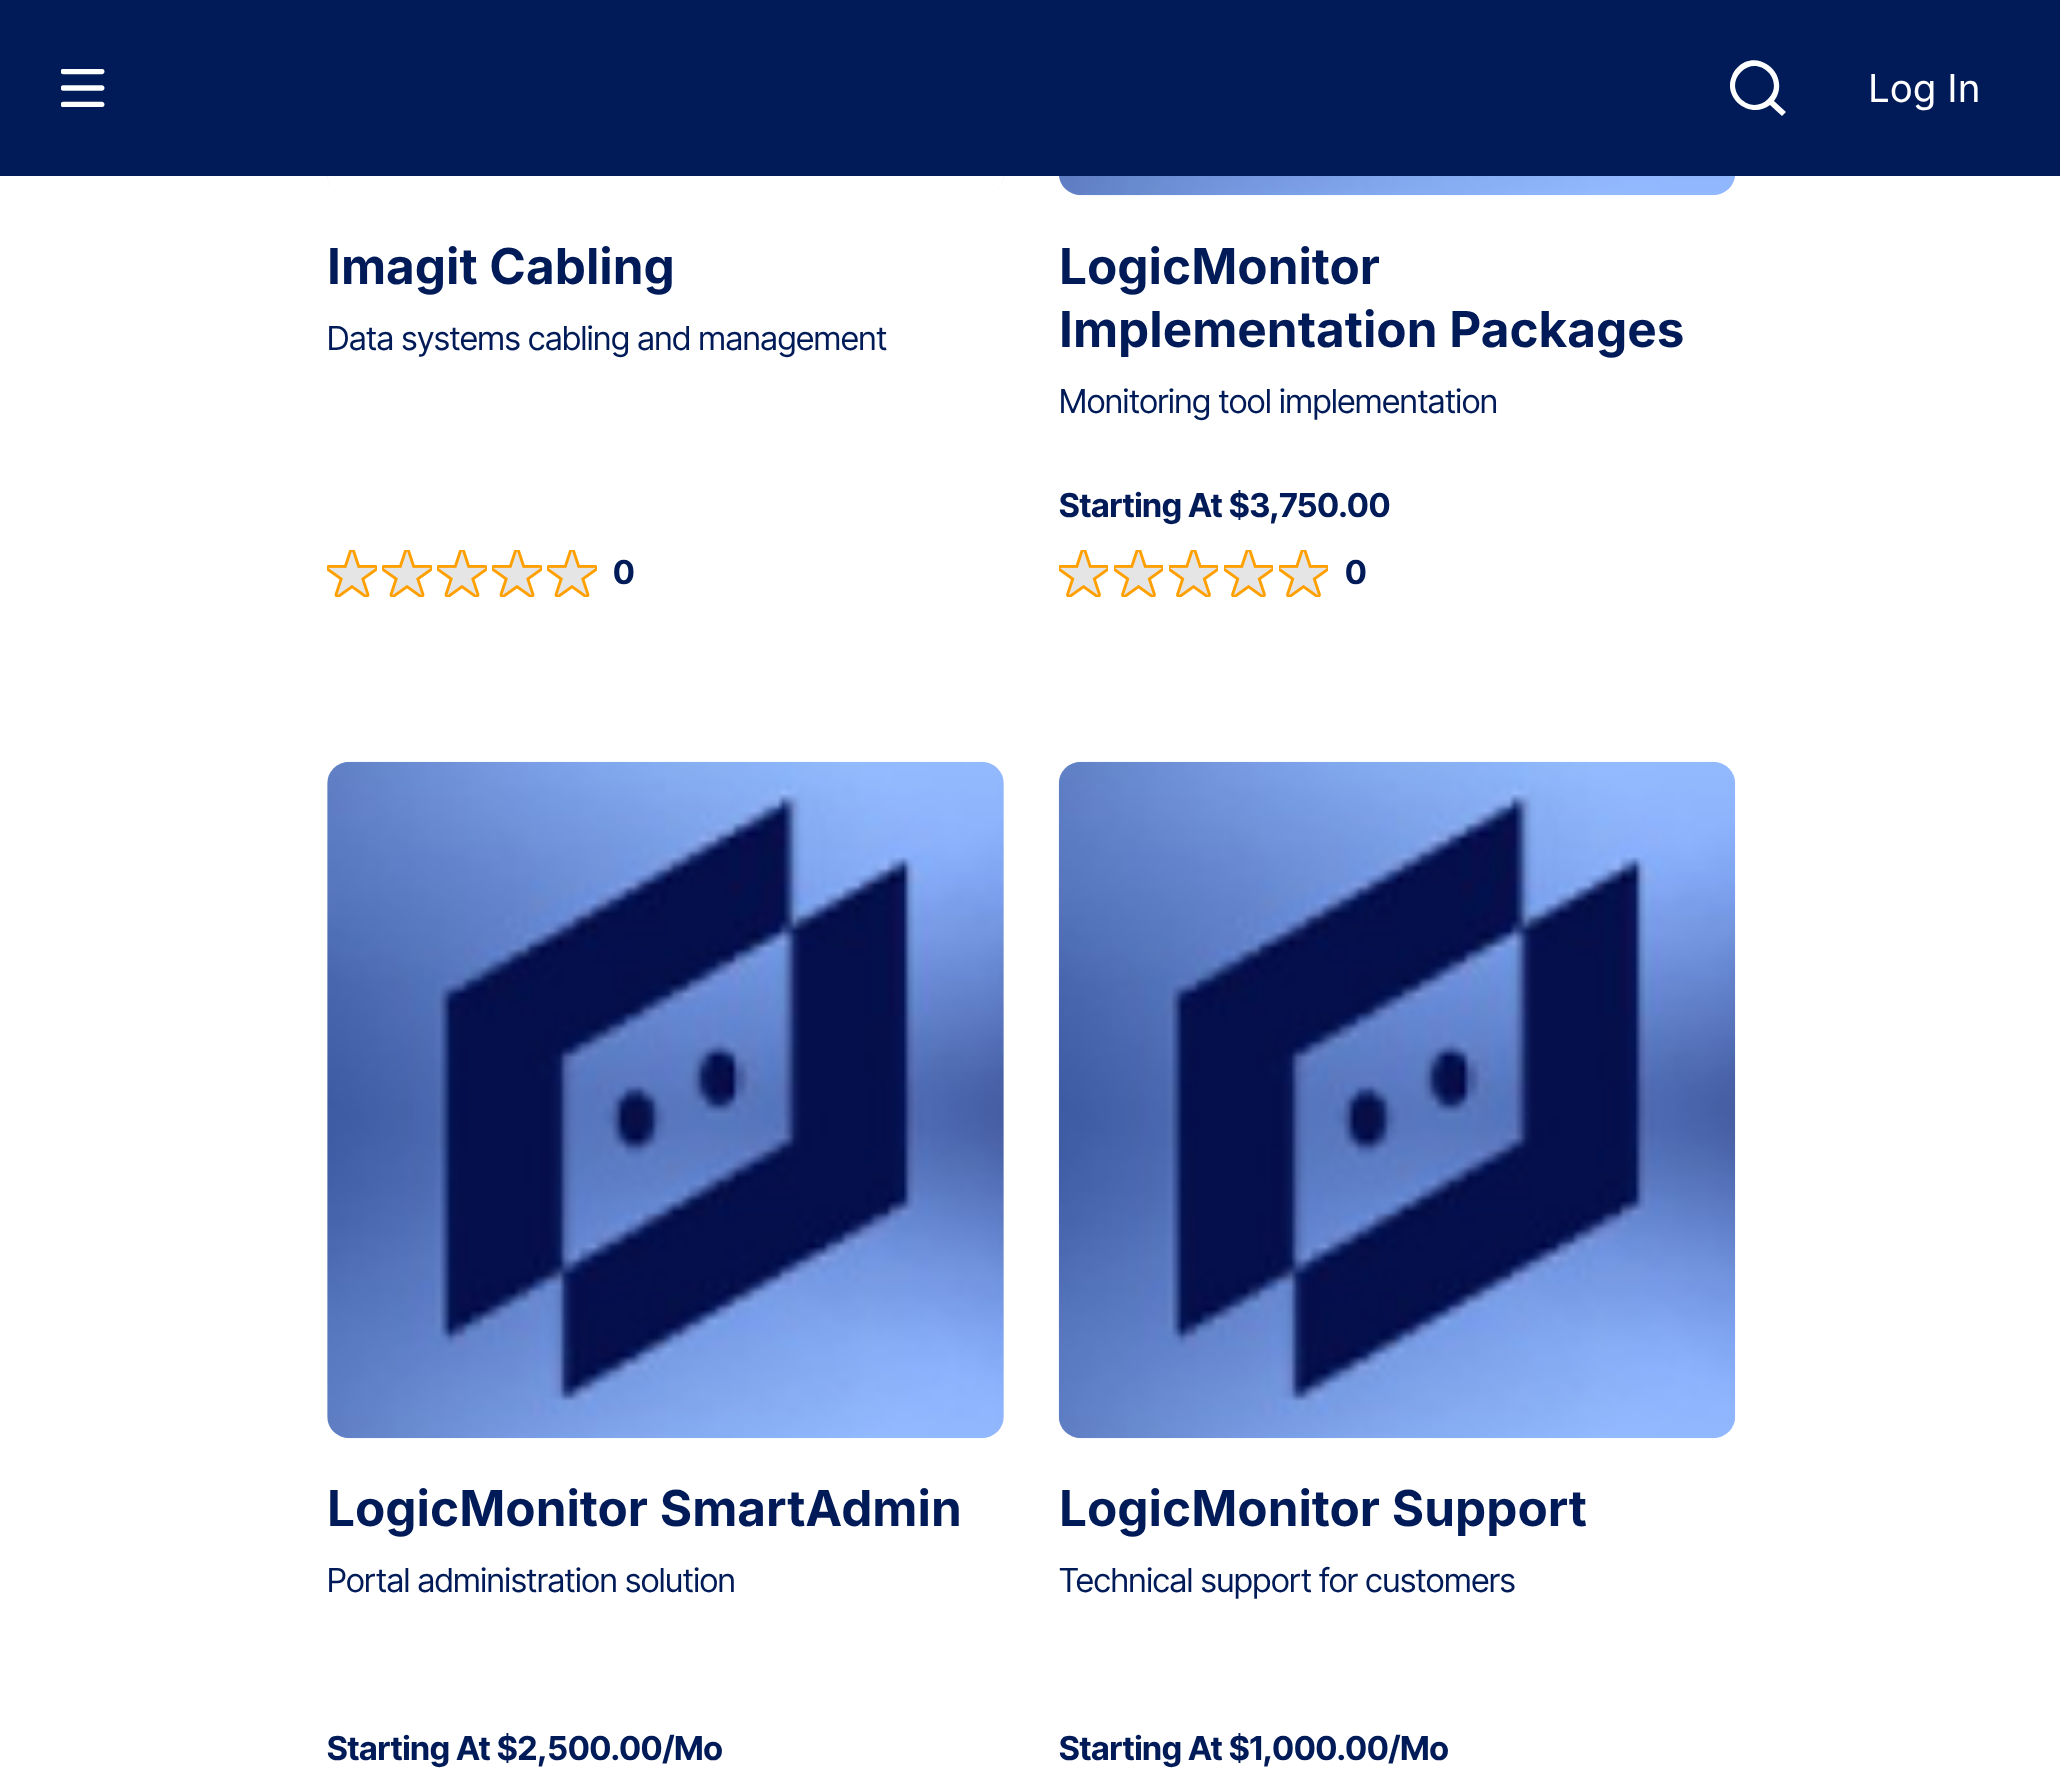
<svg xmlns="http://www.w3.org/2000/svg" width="2060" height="1786">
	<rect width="100%" height="100%" fill="#FFFFFF" />
	<rect x="327" y="-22" width="677" height="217" rx="22" fill="#EAEAEA" />
	<rect x="0" y="0" width="2060" height="176" fill="#011B58" />
	<image x="61" y="69" width="44" height="38" href="assets/img1.png" />
	<path d="M1774 101L1786 112L1782 116L1770 105C1751 120 1722 99 1732 76C1734 70 1739 65 1745 62C1753 59 1761 60 1768 65C1780 73 1783 90 1774 101ZM1768 99C1786 81 1759 54 1741 72C1723 90 1750 117 1768 99Z" fill="#FFFFFF" />
	<text x="1868" y="102" font-family="Inter" font-size="38.5" fill="#FFFFFF">Log In</text>
	<image x="327" y="176" width="677" height="19" href="assets/img2.png" />
	<text x="327" y="284" font-family="Inter" font-size="49.5" font-weight="700" fill="#011B58">Imagit Cabling</text>
	<text x="327" y="350" font-family="Inter Tight" font-size="33" fill="#011B58">Data systems cabling and management</text>
	<image x="327" y="550" width="50" height="47" href="assets/img3.png" />
	<image x="382" y="550" width="50" height="47" href="assets/img3.png" />
	<image x="437" y="550" width="50" height="47" href="assets/img3.png" />
	<image x="492" y="550" width="50" height="47" href="assets/img3.png" />
	<image x="547" y="550" width="50" height="47" href="assets/img3.png" />
	<text x="613" y="584" font-family="Inter Tight" font-size="33" font-weight="700" fill="#011B58">0</text>
	<image x="1059" y="176" width="676" height="20" href="assets/img4.png" />
	<g font-family="Inter" font-size="49.5" font-weight="700" fill="#011B58">
		<text x="1059" y="284">LogicMonitor</text>
		<text x="1059" y="347">Implementation Packages</text>
	</g>
	<text x="1059" y="413" font-family="Inter Tight" font-size="33" fill="#011B58">Monitoring tool implementation</text>
	<text x="1059" y="517" font-family="Inter Tight" font-size="33" font-weight="700" fill="#011B58">Starting At $3,750.00</text>
	<image x="1059" y="550" width="49" height="47" href="assets/img5.png" />
	<image x="1114" y="550" width="49" height="47" href="assets/img5.png" />
	<image x="1169" y="550" width="49" height="47" href="assets/img5.png" />
	<image x="1224" y="550" width="49" height="47" href="assets/img5.png" />
	<image x="1279" y="550" width="49" height="47" href="assets/img5.png" />
	<text x="1345" y="584" font-family="Inter Tight" font-size="33" font-weight="700" fill="#011B58">0</text>
	<rect x="327" y="762" width="677" height="676" rx="22" fill="#EAEAEA" />
	<image x="327" y="761" width="677" height="678" href="assets/img6.png" />
	<text x="327" y="1526" font-family="Inter" font-size="49.5" font-weight="700" fill="#011B58">LogicMonitor SmartAdmin</text>
	<text x="327" y="1592" font-family="Inter Tight" font-size="33" fill="#011B58">Portal administration solution</text>
	<text x="327" y="1760" font-family="Inter Tight" font-size="33" font-weight="700" fill="#011B58">Starting At $2,500.00/Mo</text>
	<image x="1058" y="761" width="678" height="678" href="assets/img7.png" />
	<text x="1059" y="1526" font-family="Inter" font-size="49.5" font-weight="700" fill="#011B58">LogicMonitor Support</text>
	<text x="1059" y="1592" font-family="Inter Tight" font-size="33" fill="#011B58">Technical support for customers</text>
	<text x="1059" y="1760" font-family="Inter Tight" font-size="33" font-weight="700" fill="#011B58">Starting At $1,000.00/Mo</text>
</svg>
